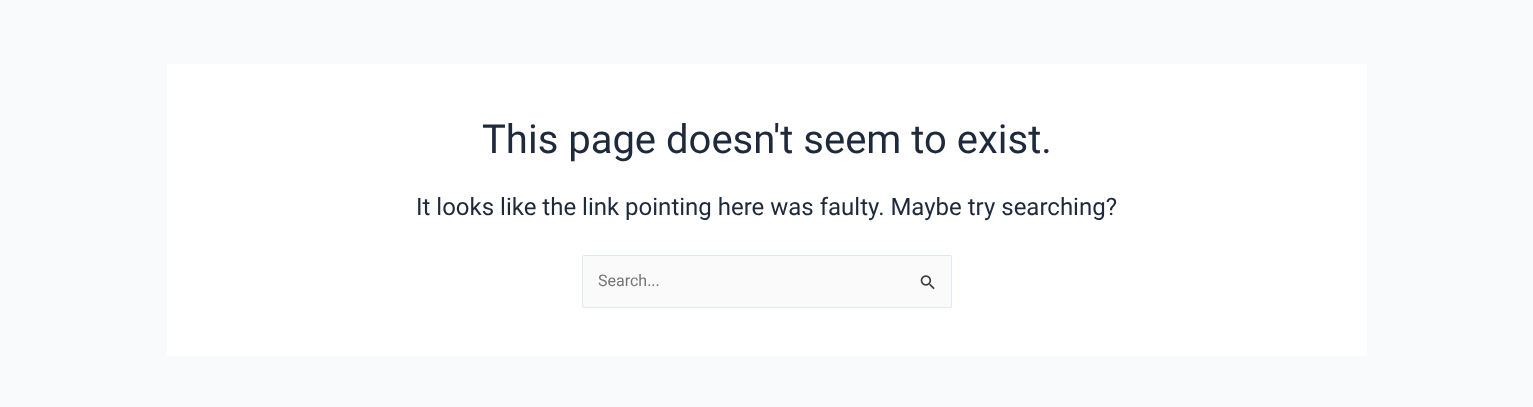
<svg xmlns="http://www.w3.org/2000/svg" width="1533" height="407">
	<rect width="100%" height="100%" fill="#F9FAFB" />
	<rect x="167" y="64" width="1200" height="292" fill="#FFFFFF" />
	<text x="482" y="153" font-family="Roboto" font-size="40" fill="#1E293B">This page doesn't seem to exist.</text>
	<text x="416" y="215" font-family="Roboto" font-size="24" fill="#1E293B">It looks like the link pointing here was faulty. Maybe try searching?</text>
	<rect x="582.5" y="255.5" width="369" height="52" rx="1.5" fill="#FAFAFA" stroke="#E2E8F0" />
	<text x="598" y="286" font-family="Roboto" font-size="16" fill="#757575">Search...</text>
	<image x="920" y="275" width="15" height="15" href="assets/img1.png" />
</svg>
